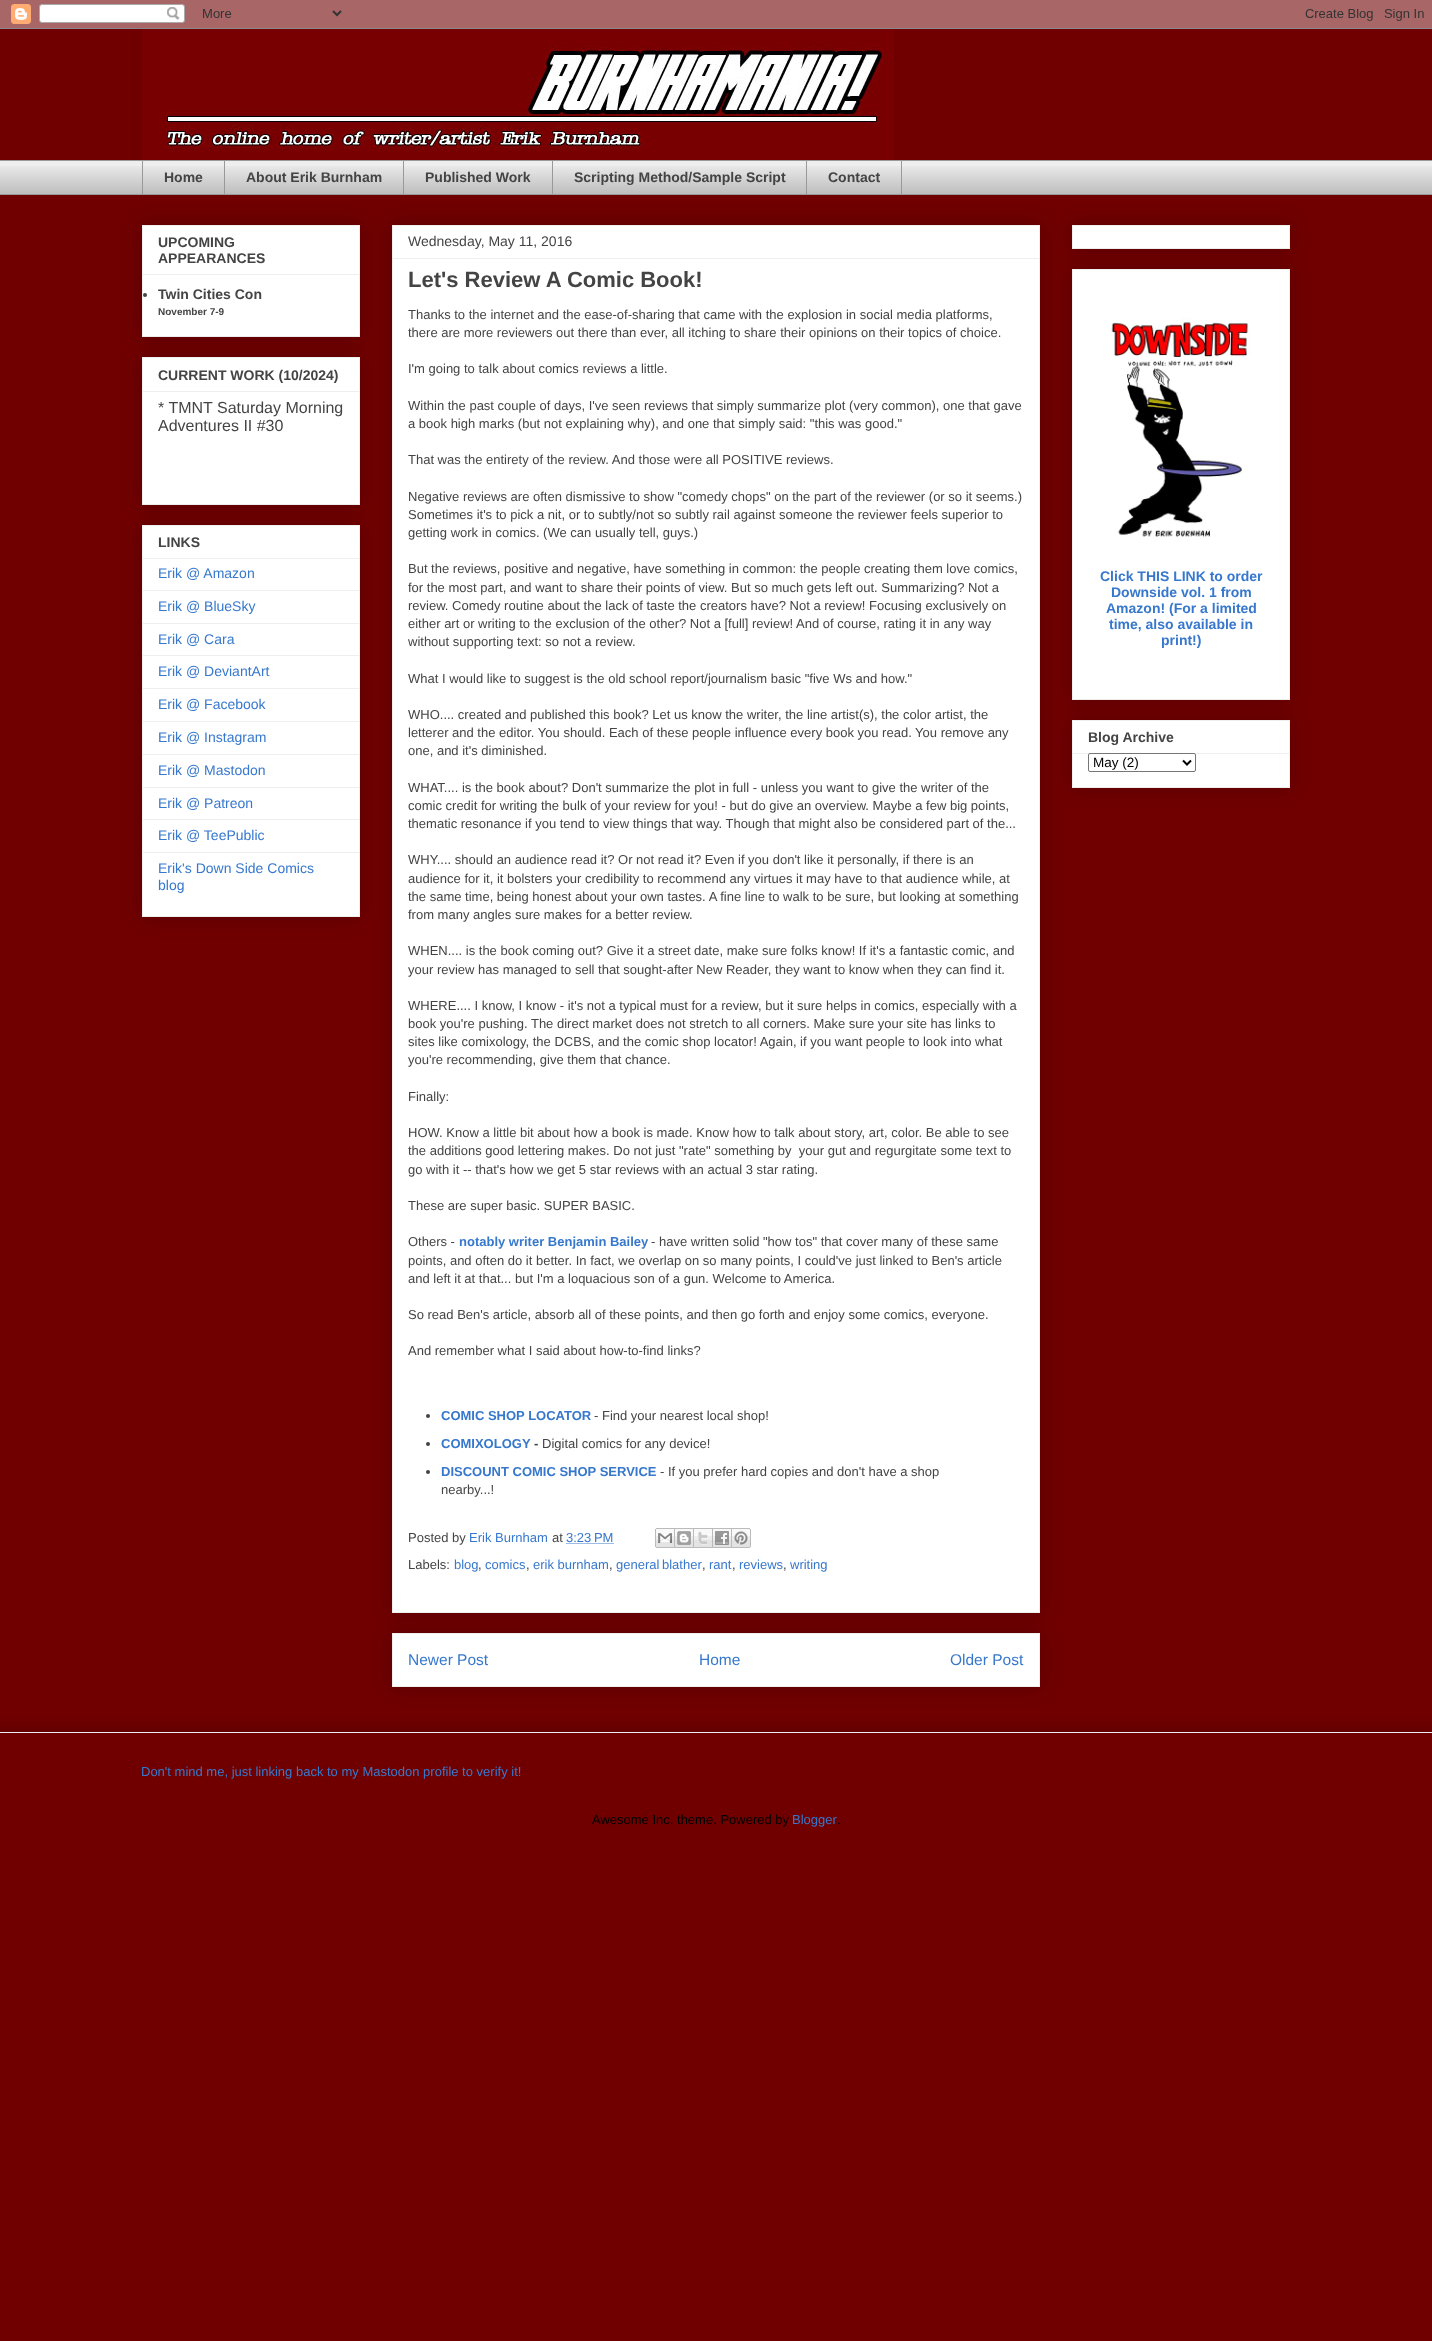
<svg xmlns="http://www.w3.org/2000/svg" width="1432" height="2341">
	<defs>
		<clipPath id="clip1"><rect x="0" y="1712" width="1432" height="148" /></clipPath>
		<clipPath id="clip2"><rect x="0" y="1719" width="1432" height="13" /></clipPath>
	</defs>
	<rect width="100%" height="100%" fill="#700000" />
	<image x="0" y="0" width="1432" height="29" href="assets/img1.png" />
	<image x="142" y="29" width="752" height="131" href="assets/img2.png" />
	<rect x="0" y="161" width="1432" height="33" fill="#EEEEEE" />
	<image x="0" y="166" width="1432" height="28" href="assets/img3.png" />
	<rect x="0" y="160" width="1432" height="1" fill="#999999" />
	<rect x="142" y="160" width="1" height="35" fill="#999999" />
	<text x="164" y="182" font-family="Liberation Sans" font-size="14" font-weight="700" fill="#444444">Home</text>
	<rect x="224" y="160" width="1" height="35" fill="#999999" />
	<text x="246" y="182" font-family="Liberation Sans" font-size="14" font-weight="700" fill="#444444">About Erik Burnham</text>
	<rect x="403" y="160" width="1" height="35" fill="#999999" />
	<text x="425" y="182" font-family="Liberation Sans" font-size="14" font-weight="700" fill="#444444">Published Work</text>
	<rect x="552" y="160" width="1" height="35" fill="#999999" />
	<text x="574" y="182" font-family="Liberation Sans" font-size="14" font-weight="700" fill="#444444">Scripting Method/Sample Script</text>
	<rect x="806.5" y="160.5" width="95" height="34" fill="none" stroke="#999999" />
	<text x="828" y="182" font-family="Liberation Sans" font-size="14" font-weight="700" fill="#444444">Contact</text>
	<rect x="0" y="194" width="1432" height="1" fill="#999999" />
	<rect x="142" y="225" width="218" height="112" fill="#000000" fill-opacity="0.2" filter="blur(10px)" />
	<rect x="142.5" y="225.5" width="217" height="111" fill="#FFFFFF" stroke="#EEEEEE" />
	<g font-family="Liberation Sans" font-size="14" font-weight="700" fill="#444444">
		<text x="158" y="247">UPCOMING</text>
		<text x="158" y="263">APPEARANCES</text>
	</g>
	<rect x="143" y="274" width="216" height="1" fill="#EEEEEE" />
	<circle cx="145" cy="295" r="2" fill="#444444" />
	<text x="158" y="299" font-family="Liberation Sans" font-size="14" font-weight="700" fill="#444444">Twin Cities Con</text>
	<text x="158" y="315" font-family="Liberation Sans" font-size="10" font-weight="700" fill="#444444">November 7-9</text>
	<rect x="142" y="357" width="218" height="148" fill="#000000" fill-opacity="0.2" filter="blur(10px)" />
	<rect x="142.5" y="357.5" width="217" height="147" fill="#FFFFFF" stroke="#EEEEEE" />
	<text x="158" y="380" font-family="Liberation Sans" font-size="14" font-weight="700" fill="#444444">CURRENT WORK (10/2024)</text>
	<rect x="143" y="391" width="216" height="1" fill="#EEEEEE" />
	<g font-family="Liberation Sans" font-size="16" fill="#444444">
		<text x="158" y="413">* TMNT Saturday Morning</text>
		<text x="158" y="431">Adventures II #30</text>
	</g>
	<rect x="142" y="525" width="218" height="392" fill="#000000" fill-opacity="0.2" filter="blur(10px)" />
	<rect x="142.5" y="525.5" width="217" height="391" fill="#FFFFFF" stroke="#EEEEEE" />
	<text x="158" y="547" font-family="Liberation Sans" font-size="14" font-weight="700" fill="#444444">LINKS</text>
	<rect x="143" y="558" width="216" height="1" fill="#EEEEEE" />
	<text x="158" y="578" font-family="Liberation Sans" font-size="14" fill="#3778CD">Erik @ Amazon</text>
	<rect x="143" y="590" width="216" height="1" fill="#EEEEEE" />
	<text x="158" y="611" font-family="Liberation Sans" font-size="14" fill="#3778CD">Erik @ BlueSky</text>
	<rect x="143" y="623" width="216" height="1" fill="#EEEEEE" />
	<text x="158" y="644" font-family="Liberation Sans" font-size="14" fill="#3778CD">Erik @ Cara</text>
	<rect x="143" y="655" width="216" height="1" fill="#EEEEEE" />
	<text x="158" y="676" font-family="Liberation Sans" font-size="14" fill="#3778CD">Erik @ DeviantArt</text>
	<rect x="143" y="688" width="216" height="1" fill="#EEEEEE" />
	<text x="158" y="709" font-family="Liberation Sans" font-size="14" fill="#3778CD">Erik @ Facebook</text>
	<rect x="143" y="721" width="216" height="1" fill="#EEEEEE" />
	<text x="158" y="742" font-family="Liberation Sans" font-size="14" fill="#3778CD">Erik @ Instagram</text>
	<rect x="143" y="754" width="216" height="1" fill="#EEEEEE" />
	<text x="158" y="775" font-family="Liberation Sans" font-size="14" fill="#3778CD">Erik @ Mastodon</text>
	<rect x="143" y="787" width="216" height="1" fill="#EEEEEE" />
	<text x="158" y="808" font-family="Liberation Sans" font-size="14" fill="#3778CD">Erik @ Patreon</text>
	<rect x="143" y="819" width="216" height="1" fill="#EEEEEE" />
	<text x="158" y="840" font-family="Liberation Sans" font-size="14" fill="#3778CD">Erik @ TeePublic</text>
	<rect x="143" y="852" width="216" height="1" fill="#EEEEEE" />
	<g font-family="Liberation Sans" font-size="14" fill="#3778CD">
		<text x="158" y="873">Erik's Down Side Comics</text>
		<text x="158" y="890">blog</text>
	</g>
	<rect x="392" y="1633" width="648" height="54" fill="#000000" fill-opacity="0.2" filter="blur(10px)" />
	<rect x="392.5" y="1633.5" width="647" height="53" fill="#FFFFFF" stroke="#EEEEEE" />
	<rect x="392" y="225" width="648" height="1388" fill="#000000" fill-opacity="0.2" filter="blur(10px)" />
	<rect x="392.5" y="225.5" width="647" height="1387" fill="#FFFFFF" stroke="#EEEEEE" />
	<text x="408" y="246" font-family="Liberation Sans" font-size="14" fill="#444444">Wednesday, May 11, 2016</text>
	<rect x="393" y="258" width="646" height="1" fill="#EEEEEE" />
	<text x="408" y="287" font-family="Liberation Sans" font-size="22" font-weight="700" fill="#444444">Let's Review A Comic Book!</text>
	<g font-family="Liberation Sans" font-size="13" fill="#444444">
		<text x="408" y="319">Thanks to the internet and the ease-of-sharing that came with the explosion in social media platforms,</text>
		<text x="408" y="337">there are more reviewers out there than ever, all itching to share their opinions on their topics of choice.</text>
		<text x="408" y="373">I'm going to talk about comics reviews a little.</text>
		<text x="408" y="410">Within the past couple of days, I've seen reviews that simply summarize plot (very common), one that gave</text>
		<text x="408" y="428">a book high marks (but not explaining why), and one that simply said: "this was good."</text>
		<text x="408" y="464">That was the entirety of the review. And those were all POSITIVE reviews.</text>
		<text x="408" y="501">Negative reviews are often dismissive to show "comedy chops" on the part of the reviewer (or so it seems.)</text>
		<text x="408" y="519">Sometimes it's to pick a nit, or to subtly/not so subtly rail against someone the reviewer feels superior to</text>
		<text x="408" y="537">getting work in comics. (We can usually tell, guys.)</text>
		<text x="408" y="573">But the reviews, positive and negative, have something in common: the people creating them love comics,</text>
		<text x="408" y="592">for the most part, and want to share their points of view. But so much gets left out. Summarizing? Not a</text>
		<text x="408" y="610">review. Comedy routine about the lack of taste the creators have? Not a review! Focusing exclusively on</text>
		<text x="408" y="628">either art or writing to the exclusion of the other? Not a [full] review! And of course, rating it in any way</text>
		<text x="408" y="646">without supporting text: so not a review.</text>
		<text x="408" y="683">What I would like to suggest is the old school report/journalism basic "five Ws and how."</text>
		<text x="408" y="719">WHO.... created and published this book? Let us know the writer, the line artist(s), the color artist, the</text>
		<text x="408" y="737">letterer and the editor. You should. Each of these people influence every book you read. You remove any</text>
		<text x="408" y="755">one, and it's diminished.</text>
		<text x="408" y="792">WHAT.... is the book about? Don't summarize the plot in full - unless you want to give the writer of the</text>
		<text x="408" y="810">comic credit for writing the bulk of your review for you! - but do give an overview. Maybe a few big points,</text>
		<text x="408" y="828">thematic resonance if you tend to view things that way. Though that might also be considered part of the...</text>
		<text x="408" y="864">WHY.... should an audience read it? Or not read it? Even if you don't like it personally, if there is an</text>
		<text x="408" y="883">audience for it, it bolsters your credibility to recommend any virtues it may have to that audience while, at</text>
		<text x="408" y="901">the same time, being honest about your own tastes. A fine line to walk to be sure, but looking at something</text>
		<text x="408" y="919">from many angles sure makes for a better review.</text>
		<text x="408" y="955">WHEN.... is the book coming out? Give it a street date, make sure folks know! If it's a fantastic comic, and</text>
		<text x="408" y="974">your review has managed to sell that sought-after New Reader, they want to know when they can find it.</text>
		<text x="408" y="1010">WHERE.... I know, I know - it's not a typical must for a review, but it sure helps in comics, especially with a</text>
		<text x="408" y="1028">book you're pushing. The direct market does not stretch to all corners. Make sure your site has links to</text>
		<text x="408" y="1046">sites like comixology, the DCBS, and the comic shop locator! Again, if you want people to look into what</text>
		<text x="408" y="1064">you're recommending, give them that chance.</text>
		<text x="408" y="1101">Finally:</text>
		<text x="408" y="1137">HOW. Know a little bit about how a book is made. Know how to talk about story, art, color. Be able to see</text>
		<text x="408" y="1155" xml:space="preserve">the additions good lettering makes. Do not just "rate" something by  your gut and regurgitate some text to</text>
		<text x="408" y="1174">go with it -- that's how we get 5 star reviews with an actual 3 star rating.</text>
		<text x="408" y="1210">These are super basic. SUPER BASIC.</text>
		<text x="408" y="1246">Others -</text>
	</g>
	<text x="459" y="1246" font-family="Liberation Sans" font-size="13" font-weight="700" fill="#3778CD">notably writer Benjamin Bailey</text>
	<g font-family="Liberation Sans" font-size="13" fill="#444444">
		<text x="651" y="1246">- have written solid "how tos" that cover many of these same</text>
		<text x="408" y="1265">points, and often do it better. In fact, we overlap on so many points, I could've just linked to Ben's article</text>
		<text x="408" y="1283">and left it at that... but I'm a loquacious son of a gun. Welcome to America.</text>
		<text x="408" y="1319">So read Ben's article, absorb all of these points, and then go forth and enjoy some comics, everyone.</text>
		<text x="408" y="1355">And remember what I said about how-to-find links?</text>
	</g>
	<circle cx="428" cy="1416" r="2" fill="#444444" />
	<text x="441" y="1420" font-family="Liberation Sans" font-size="13" font-weight="700" fill="#3778CD">COMIC SHOP LOCATOR</text>
	<text x="594" y="1420" font-family="Liberation Sans" font-size="13" fill="#444444">- Find your nearest local shop!</text>
	<circle cx="428" cy="1444" r="2" fill="#444444" />
	<text x="441" y="1448" font-family="Liberation Sans" font-size="13" font-weight="700" fill="#3778CD">COMIXOLOGY</text>
	<text x="534" y="1448" font-family="Liberation Sans" font-size="13" font-weight="700" fill="#444444">-</text>
	<text x="542" y="1448" font-family="Liberation Sans" font-size="13" fill="#444444">Digital comics for any device!</text>
	<circle cx="428" cy="1472" r="2" fill="#444444" />
	<text x="441" y="1476" font-family="Liberation Sans" font-size="13" font-weight="700" fill="#3778CD">DISCOUNT COMIC SHOP SERVICE</text>
	<g font-family="Liberation Sans" font-size="13" fill="#444444">
		<text x="660" y="1476">- If you prefer hard copies and don't have a shop</text>
		<text x="441" y="1494">nearby...!</text>
		<text x="408" y="1542">Posted by</text>
	</g>
	<text x="469" y="1542" font-family="Liberation Sans" font-size="13" fill="#3778CD">Erik Burnham</text>
	<text x="552" y="1542" font-family="Liberation Sans" font-size="13" fill="#444444">at</text>
	<text x="566" y="1542" font-family="Liberation Sans" font-size="13" fill="#3778CD">3:23 PM</text>
	<path d="M566.5 1543.5H613.5" fill="none" stroke="#3778CD" stroke-dasharray="1 1" />
	<image x="655" y="1528" width="20" height="20" href="assets/img4.png" />
	<image x="675" y="1528" width="19" height="20" href="assets/img5.png" />
	<image x="694" y="1528" width="19" height="20" href="assets/img6.png" />
	<image x="713" y="1528" width="19" height="20" href="assets/img7.png" />
	<image x="732" y="1528" width="19" height="20" href="assets/img8.png" />
	<text x="408" y="1569" font-family="Liberation Sans" font-size="13" fill="#444444">Labels:</text>
	<text x="454" y="1569" font-family="Liberation Sans" font-size="13" fill="#3778CD">blog</text>
	<text x="478" y="1569" font-family="Liberation Sans" font-size="13" fill="#444444">,</text>
	<text x="485" y="1569" font-family="Liberation Sans" font-size="13" fill="#3778CD">comics</text>
	<text x="526" y="1569" font-family="Liberation Sans" font-size="13" fill="#444444">,</text>
	<text x="533" y="1569" font-family="Liberation Sans" font-size="13" fill="#3778CD">erik burnham</text>
	<text x="609" y="1569" font-family="Liberation Sans" font-size="13" fill="#444444">,</text>
	<text x="616" y="1569" word-spacing="-1" font-family="Liberation Sans" font-size="13" fill="#3778CD">general blather</text>
	<text x="702" y="1569" font-family="Liberation Sans" font-size="13" fill="#444444">,</text>
	<text x="709" y="1569" font-family="Liberation Sans" font-size="13" fill="#3778CD">rant</text>
	<text x="732" y="1569" font-family="Liberation Sans" font-size="13" fill="#444444">,</text>
	<text x="739" y="1569" font-family="Liberation Sans" font-size="13" fill="#3778CD">reviews</text>
	<text x="783" y="1569" font-family="Liberation Sans" font-size="13" fill="#444444">,</text>
	<text x="790" y="1569" font-family="Liberation Sans" font-size="13" fill="#3778CD">writing</text>
	<g font-family="Liberation Sans" font-size="15.5" fill="#3778CD">
		<text x="408" y="1665">Newer Post</text>
		<text x="699" y="1665">Home</text>
		<text x="950" y="1665">Older Post</text>
	</g>
	<rect x="1072" y="225" width="218" height="24" fill="#000000" fill-opacity="0.2" filter="blur(10px)" />
	<rect x="1072.5" y="225.5" width="217" height="23" fill="#FFFFFF" stroke="#EEEEEE" />
	<rect x="1072" y="269" width="218" height="431" fill="#000000" fill-opacity="0.2" filter="blur(10px)" />
	<rect x="1072.5" y="269.5" width="217" height="430" fill="#FFFFFF" stroke="#EEEEEE" />
	<image x="1111" y="317" width="140" height="220" href="assets/img9.png" />
	<g font-family="Liberation Sans" font-size="14" font-weight="700" fill="#3778CD">
		<text x="1100" y="581">Click THIS LINK to order</text>
		<text x="1111" y="597">Downside vol. 1 from</text>
		<text x="1106" y="613">Amazon! (For a limited</text>
		<text x="1109" y="629">time, also available in</text>
		<text x="1161" y="645">print!)</text>
	</g>
	<rect x="1072" y="720" width="218" height="68" fill="#000000" fill-opacity="0.2" filter="blur(10px)" />
	<rect x="1072.5" y="720.5" width="217" height="67" fill="#FFFFFF" stroke="#EEEEEE" />
	<text x="1088" y="742" font-family="Liberation Sans" font-size="14" font-weight="700" fill="#444444">Blog Archive</text>
	<rect x="1073" y="753" width="216" height="1" fill="#EEEEEE" />
	<rect x="1088.5" y="753.5" width="107" height="18" rx="1.5" fill="#FFFFFF" stroke="#767676" />
	<path d="M1183 760.5L1187 764.5L1191 760.5" fill="none" stroke="#000000" stroke-width="2" />
	<text x="1093" y="767" font-family="Liberation Sans" font-size="13.5" fill="#000000">May (2)</text>
	<g clip-path="url(#clip1)">
		<g clip-path="url(#clip2)">
			<rect x="-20" y="1732" width="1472" height="128" fill="#000000" fill-opacity="0.2" filter="blur(10px)" />
		</g>
	</g>
	<rect x="0" y="1732" width="1432" height="1" fill="#EEEEEE" />
	<text x="141" y="1776" font-family="Liberation Sans" font-size="13" fill="#3778CD">Don't mind me, just linking back to my Mastodon profile to verify it!</text>
	<text x="592" y="1824" font-family="Liberation Sans" font-size="13" fill="#000000">Awesome Inc. theme. Powered by</text>
	<text x="792" y="1824" font-family="Liberation Sans" font-size="13" fill="#3778CD">Blogger</text>
	<text x="837" y="1824" font-family="Liberation Sans" font-size="13" fill="#000000">.</text>
</svg>
